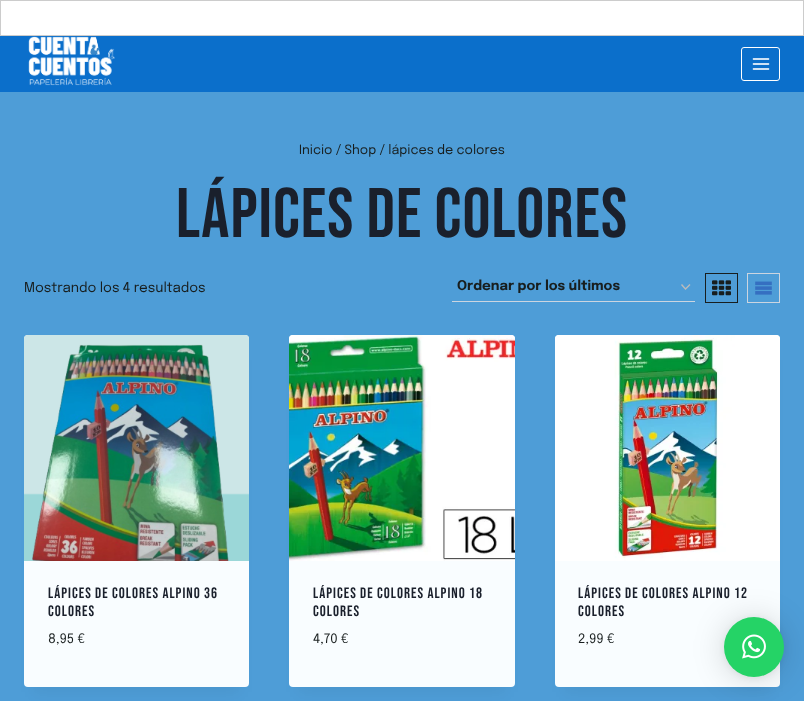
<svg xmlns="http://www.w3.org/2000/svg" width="804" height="701">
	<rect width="100%" height="100%" fill="#4E9DD7" />
	<rect x="0.5" y="0.5" width="803" height="35" fill="#FFFFFF" stroke="#CCCCCC" />
	<rect x="0" y="36" width="804" height="56" fill="#0B6FCB" />
	<image x="28" y="36" width="87" height="50" href="assets/img1.png" />
	<rect x="741.5" y="47.5" width="38" height="33" rx="2.5" fill="none" stroke="#FFFFFF" />
	<image x="752" y="58" width="18" height="12" href="assets/img2.png" />
	<text x="299" y="154" font-family="Epilogue" font-size="12.75" fill="#181E1E">Inicio / Shop / lápices de colores</text>
	<text x="176" y="237" font-family="Bebas Neue" font-size="70" letter-spacing="1" fill="#1A202C">LÁPICES DE COLORES</text>
	<text x="24" y="292" font-family="Epilogue" font-size="13.5" fill="#181E1E">Mostrando los 4 resultados</text>
	<path d="M681.5 284.5L685.5 289L690 284.5" fill="none" stroke="#BBBBBB" stroke-width="1.4" />
	<rect x="452" y="301" width="243" height="1" fill="#CBD5E0" />
	<text x="457" y="290" font-family="Epilogue" font-size="13.5" font-weight="700" fill="#181E1E">Ordenar por los últimos</text>
	<rect x="705.5" y="273.5" width="32" height="29" fill="none" stroke="#181E1E" />
	<image x="712" y="280" width="19" height="16" href="assets/img3.png" />
	<rect x="747.5" y="273.5" width="32" height="29" fill="none" stroke="#CBD5E0" />
	<image x="755" y="281" width="17" height="14" href="assets/img4.png" />
	<rect x="34" y="360" width="205" height="332" fill="#000000" fill-opacity="0.05" filter="blur(7.5px)" />
	<rect x="24" y="335" width="225" height="352" rx="4" fill="#F9FDFF" />
	<image x="24" y="335" width="225" height="226" href="assets/img5.png" />
	<g font-family="Bebas Neue" font-size="15" letter-spacing="1" fill="#1A202C">
		<text x="48" y="598">LÁPICES DE COLORES ALPINO 36</text>
		<text x="48" y="616">COLORES</text>
	</g>
	<text x="48" y="643" font-family="Epilogue" font-size="13" fill="#181E1E">8,95 €</text>
	<rect x="299" y="360" width="206" height="332" fill="#000000" fill-opacity="0.05" filter="blur(7.5px)" />
	<rect x="289" y="335" width="226" height="352" rx="4" fill="#F9FDFF" />
	<image x="289" y="335" width="226" height="226" href="assets/img6.png" />
	<g font-family="Bebas Neue" font-size="15" letter-spacing="1" fill="#1A202C">
		<text x="313" y="598">LÁPICES DE COLORES ALPINO 18</text>
		<text x="313" y="616">COLORES</text>
	</g>
	<text x="313" y="643" font-family="Epilogue" font-size="13" fill="#181E1E">4,70 €</text>
	<rect x="565" y="360" width="205" height="332" fill="#000000" fill-opacity="0.05" filter="blur(7.5px)" />
	<rect x="555" y="335" width="225" height="352" rx="4" fill="#F9FDFF" />
	<image x="555" y="335" width="225" height="226" href="assets/img7.png" />
	<g font-family="Bebas Neue" font-size="15" letter-spacing="1" fill="#1A202C">
		<text x="578" y="598">LÁPICES DE COLORES ALPINO 12</text>
		<text x="578" y="616">COLORES</text>
	</g>
	<text x="578" y="643" font-family="Epilogue" font-size="13" fill="#181E1E">2,99 €</text>
	<rect x="724" y="619" width="60" height="60" rx="30" fill="#000000" fill-opacity="0.16" filter="blur(16px)" />
	<rect x="724" y="618" width="60" height="60" rx="30" fill="#000000" fill-opacity="0.06" filter="blur(3px)" />
	<circle cx="754" cy="647" r="30" fill="#25D366" />
	<image x="742" y="634" width="24" height="25" href="assets/img8.png" />
</svg>
